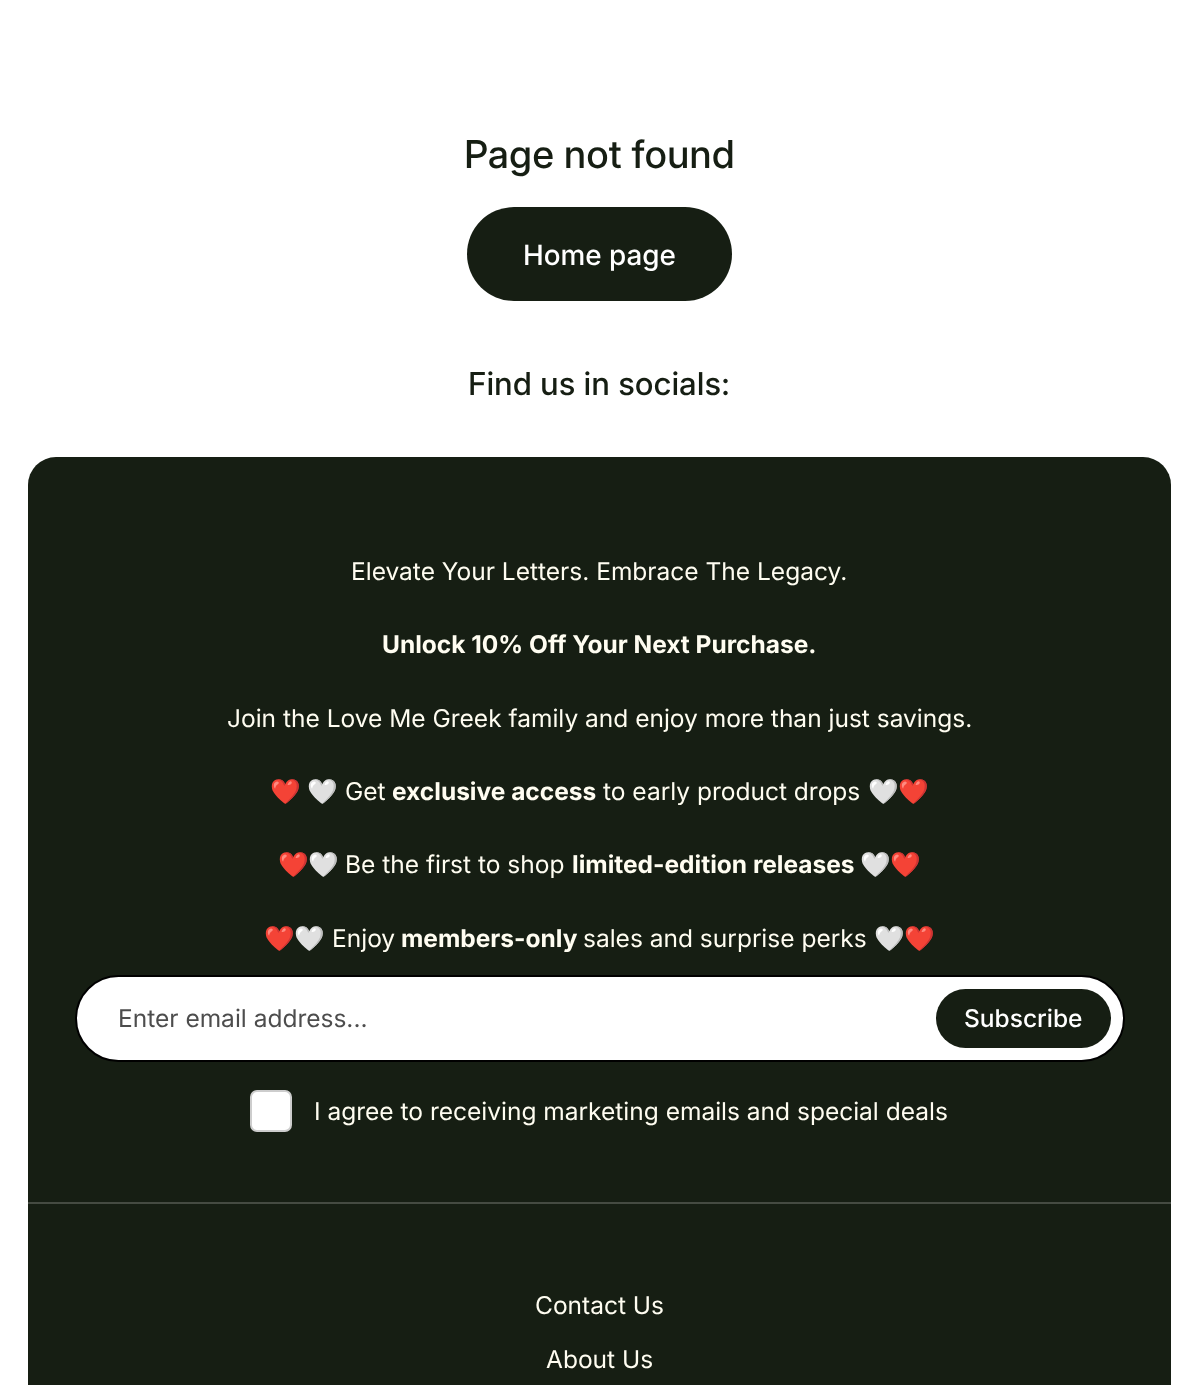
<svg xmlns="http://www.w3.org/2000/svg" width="1198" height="1385">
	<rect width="100%" height="100%" fill="#FFFFFF" />
	<text x="464" y="168" font-family="Inter" font-size="38.5" font-weight="500" fill="#161E13">Page not found</text>
	<rect x="467" y="207" width="265" height="94" rx="47" fill="#161E13" />
	<text x="523" y="265" font-family="'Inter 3'" font-size="28" font-weight="500" fill="#FFFFFF">Home page</text>
	<text x="468" y="395" font-family="'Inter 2'" font-size="31.5" font-weight="500" fill="#161E13">Find us in socials:</text>
	<rect x="28" y="457" width="1143" height="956" rx="28" fill="#161E13" />
	<text x="351" y="580" font-family="Inter" font-size="24.5" fill="#FFFDF1">Elevate Your Letters. Embrace The Legacy.</text>
	<text x="382" y="653" font-family="Inter" font-size="24.5" font-weight="700" fill="#FFFDF1">Unlock 10% Off Your Next Purchase.</text>
	<text x="227" y="727" font-family="Inter" font-size="24.5" fill="#FFFDF1">Join the Love Me Greek family and enjoy more than just savings.</text>
	<g font-family="Noto Color Emoji" font-size="24.5" fill="#FFFDF1">
		<text x="270" y="800">❤️</text>
		<text x="307" y="800">🤍</text>
	</g>
	<text x="345" y="800" font-family="Inter" font-size="24.5" fill="#FFFDF1">Get</text>
	<text x="392" y="800" font-family="Inter" font-size="24.5" font-weight="700" fill="#FFFDF1">exclusive access</text>
	<text x="603" y="800" font-family="Inter" font-size="24.5" fill="#FFFDF1">to early product drops</text>
	<g font-family="Noto Color Emoji" font-size="24.5" fill="#FFFDF1">
		<text x="868" y="800">🤍❤️</text>
		<text x="278" y="873">❤️🤍</text>
	</g>
	<text x="345" y="873" font-family="Inter" font-size="24.5" fill="#FFFDF1">Be the first to shop</text>
	<text x="572" y="873" font-family="Inter" font-size="24.5" font-weight="700" fill="#FFFDF1">limited-edition releases</text>
	<text x="860" y="873" font-family="Noto Color Emoji" font-size="24.5" font-weight="700" fill="#FFFDF1">🤍❤️</text>
	<text x="264" y="947" font-family="Noto Color Emoji" font-size="24.5" fill="#FFFDF1">❤️🤍</text>
	<text x="332" y="947" font-family="Inter" font-size="24.5" fill="#FFFDF1">Enjoy</text>
	<text x="401" y="947" font-family="Inter" font-size="24.5" font-weight="700" fill="#FFFDF1">members-only</text>
	<text x="583" y="947" font-family="Inter" font-size="24.5" fill="#FFFDF1">sales and surprise perks</text>
	<text x="874" y="947" font-family="Noto Color Emoji" font-size="24.5" fill="#FFFDF1">🤍❤️</text>
	<rect x="76" y="976" width="1048" height="85" rx="42.5" fill="#FFFFFF" stroke="#000000" stroke-width="2" />
	<text x="118" y="1027" font-family="Inter" font-size="24.5" fill="#4D4D4D">Enter email address...</text>
	<rect x="936" y="989" width="175" height="59" rx="29.5" fill="#161E13" />
	<text x="964" y="1027" font-family="'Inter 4'" font-size="24.5" font-weight="500" fill="#FFFFFF">Subscribe</text>
	<rect x="251" y="1091" width="40" height="40" rx="6" fill="#FFFFFF" stroke="#CDCDCD" stroke-width="2" />
	<text x="314" y="1120" font-family="Inter" font-size="24.5" fill="#FFFDF1">I agree to receiving marketing emails and special deals</text>
	<rect x="28" y="1202" width="1143" height="2" fill="#454B42" />
	<g font-family="Inter" font-size="24.5" fill="#FFFDF1">
		<text x="535" y="1314">Contact Us</text>
		<text x="546" y="1368">About Us</text>
	</g>
</svg>
